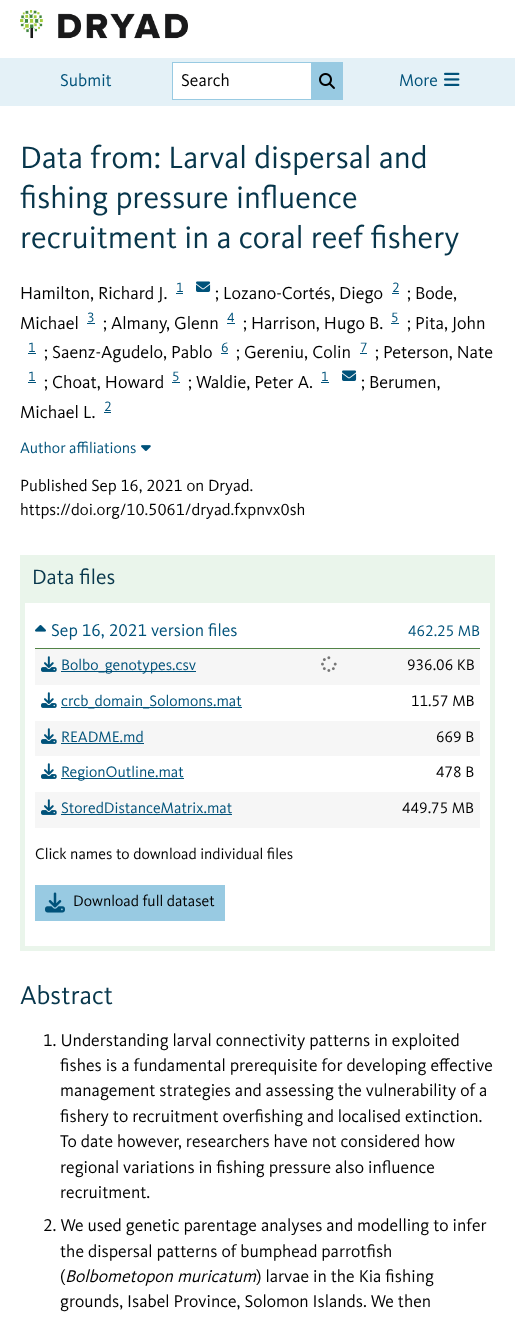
<svg xmlns="http://www.w3.org/2000/svg" width="515" height="1321">
	<rect width="100%" height="100%" fill="#FFFFFF" />
	<image x="20" y="10" width="168" height="29" href="assets/img1.png" />
	<rect x="0" y="58" width="515" height="48" fill="#E4F1F7" />
	<text x="60" y="86" font-family="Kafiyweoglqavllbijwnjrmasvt" font-size="17.6" fill="#00527A">Submit</text>
	<rect x="173" y="63" width="138" height="36" fill="#FFFFFF" />
	<rect x="172" y="62" width="139" height="1" fill="#98CAE2" />
	<rect x="172" y="99" width="139" height="1" fill="#98CAE2" />
	<rect x="172" y="62" width="1" height="38" fill="#98CAE2" />
	<text x="181" y="86" font-family="Kafiyweoglqavllbijwnjrmasvt" font-size="17.6" fill="#000000">Search</text>
	<rect x="311" y="62" width="32" height="38" fill="#98CAE2" />
	<image x="319" y="73" width="16" height="16" href="assets/img2.png" />
	<text x="399" y="86" font-family="Kafiyweoglqavllbijwnjrmasvt" font-size="17.6" fill="#00527A">More</text>
	<image x="444" y="72" width="16" height="14" href="assets/img3.png" />
	<g font-family="Kafiyweoglqavllbijwnjrmasvt" font-size="32" fill="#07364B">
		<text x="20" y="168">Data from: Larval dispersal and</text>
		<text x="20" y="208">fishing pressure influence</text>
		<text x="20" y="248">recruitment in a coral reef fishery</text>
	</g>
	<text x="20" y="299" font-family="Kafiyweoglqavllbijwnjrmasvt" font-size="18" fill="#000000">Hamilton, Richard J.</text>
	<text x="176" y="292" font-family="Kafiyweoglqavllbijwnjrmasvt" font-size="14" fill="#00527A">1</text>
	<rect x="176" y="293" width="7" height="1" fill="#00527A" />
	<image x="196" y="281" width="15" height="11" href="assets/img4.png" />
	<text x="215" y="299" font-family="Kafiyweoglqavllbijwnjrmasvt" font-size="17.6" fill="#000000">;</text>
	<text x="223" y="299" font-family="Kafiyweoglqavllbijwnjrmasvt" font-size="18" fill="#000000">Lozano-Cortés, Diego</text>
	<text x="392" y="292" font-family="Kafiyweoglqavllbijwnjrmasvt" font-size="14" fill="#00527A">2</text>
	<rect x="392" y="293" width="7" height="1" fill="#00527A" />
	<text x="407" y="299" font-family="Kafiyweoglqavllbijwnjrmasvt" font-size="17.6" fill="#000000">;</text>
	<g font-family="Kafiyweoglqavllbijwnjrmasvt" font-size="18" fill="#000000">
		<text x="415" y="299">Bode,</text>
		<text x="20" y="329">Michael</text>
	</g>
	<text x="87" y="322" font-family="Kafiyweoglqavllbijwnjrmasvt" font-size="14" fill="#00527A">3</text>
	<rect x="87" y="323" width="8" height="1" fill="#00527A" />
	<text x="103" y="329" font-family="Kafiyweoglqavllbijwnjrmasvt" font-size="17.6" fill="#000000">;</text>
	<text x="111" y="329" font-family="Kafiyweoglqavllbijwnjrmasvt" font-size="18" fill="#000000">Almany, Glenn</text>
	<text x="227" y="322" font-family="Kafiyweoglqavllbijwnjrmasvt" font-size="14" fill="#00527A">4</text>
	<rect x="227" y="323" width="8" height="1" fill="#00527A" />
	<text x="243" y="329" font-family="Kafiyweoglqavllbijwnjrmasvt" font-size="17.6" fill="#000000">;</text>
	<text x="251" y="329" font-family="Kafiyweoglqavllbijwnjrmasvt" font-size="18" fill="#000000">Harrison, Hugo B.</text>
	<text x="391" y="322" font-family="Kafiyweoglqavllbijwnjrmasvt" font-size="14" fill="#00527A">5</text>
	<rect x="391" y="323" width="8" height="1" fill="#00527A" />
	<text x="407" y="329" font-family="Kafiyweoglqavllbijwnjrmasvt" font-size="17.6" fill="#000000">;</text>
	<text x="415" y="329" font-family="Kafiyweoglqavllbijwnjrmasvt" font-size="18" fill="#000000">Pita, John</text>
	<text x="28" y="352" font-family="Kafiyweoglqavllbijwnjrmasvt" font-size="14" fill="#00527A">1</text>
	<rect x="28" y="353" width="8" height="1" fill="#00527A" />
	<text x="44" y="358" font-family="Kafiyweoglqavllbijwnjrmasvt" font-size="17.6" fill="#000000">;</text>
	<text x="52" y="358" font-family="Kafiyweoglqavllbijwnjrmasvt" font-size="18" fill="#000000">Saenz-Agudelo, Pablo</text>
	<text x="221" y="352" font-family="Kafiyweoglqavllbijwnjrmasvt" font-size="14" fill="#00527A">6</text>
	<rect x="221" y="353" width="7" height="1" fill="#00527A" />
	<text x="236" y="358" font-family="Kafiyweoglqavllbijwnjrmasvt" font-size="17.6" fill="#000000">;</text>
	<text x="244" y="358" font-family="Kafiyweoglqavllbijwnjrmasvt" font-size="18" fill="#000000">Gereniu, Colin</text>
	<text x="360" y="352" font-family="Kafiyweoglqavllbijwnjrmasvt" font-size="14" fill="#00527A">7</text>
	<rect x="360" y="353" width="7" height="1" fill="#00527A" />
	<text x="375" y="358" font-family="Kafiyweoglqavllbijwnjrmasvt" font-size="17.6" fill="#000000">;</text>
	<text x="383" y="358" font-family="Kafiyweoglqavllbijwnjrmasvt" font-size="18" fill="#000000">Peterson, Nate</text>
	<text x="28" y="381" font-family="Kafiyweoglqavllbijwnjrmasvt" font-size="14" fill="#00527A">1</text>
	<rect x="28" y="382" width="8" height="1" fill="#00527A" />
	<text x="44" y="388" font-family="Kafiyweoglqavllbijwnjrmasvt" font-size="17.6" fill="#000000">;</text>
	<text x="52" y="388" font-family="Kafiyweoglqavllbijwnjrmasvt" font-size="18" fill="#000000">Choat, Howard</text>
	<text x="172" y="381" font-family="Kafiyweoglqavllbijwnjrmasvt" font-size="14" fill="#00527A">5</text>
	<rect x="172" y="382" width="8" height="1" fill="#00527A" />
	<text x="188" y="388" font-family="Kafiyweoglqavllbijwnjrmasvt" font-size="17.6" fill="#000000">;</text>
	<text x="196" y="388" font-family="Kafiyweoglqavllbijwnjrmasvt" font-size="18" fill="#000000">Waldie, Peter A.</text>
	<text x="321" y="381" font-family="Kafiyweoglqavllbijwnjrmasvt" font-size="14" fill="#00527A">1</text>
	<rect x="321" y="382" width="8" height="1" fill="#00527A" />
	<image x="342" y="370" width="15" height="11" href="assets/img4.png" />
	<text x="361" y="388" font-family="Kafiyweoglqavllbijwnjrmasvt" font-size="17.6" fill="#000000">;</text>
	<g font-family="Kafiyweoglqavllbijwnjrmasvt" font-size="18" fill="#000000">
		<text x="369" y="388">Berumen,</text>
		<text x="20" y="418">Michael L.</text>
	</g>
	<text x="104" y="411" font-family="Kafiyweoglqavllbijwnjrmasvt" font-size="14" fill="#00527A">2</text>
	<rect x="104" y="412" width="7" height="1" fill="#00527A" />
	<text x="20" y="453" font-family="Kafiyweoglqavllbijwnjrmasvt" font-size="15.7" fill="#00527A">Author affiliations</text>
	<image x="141" y="445" width="10" height="6" href="assets/img5.png" />
	<g font-family="Kafiyweoglqavllbijwnjrmasvt" font-size="16.75" fill="#000000">
		<text x="20" y="491">Published Sep 16, 2021 on Dryad.</text>
		<text x="20" y="515">https://doi.org/10.5061/dryad.fxpnvx0sh</text>
	</g>
	<rect x="20" y="555" width="475" height="48" fill="#EAF5EB" />
	<text x="32" y="584" font-family="Kafiyweoglqavllbijwnjrmasvt" font-size="21.5" fill="#07364B">Data files</text>
	<rect x="490" y="603" width="5" height="348" fill="#EAF5EB" />
	<rect x="20" y="946" width="475" height="5" fill="#EAF5EB" />
	<rect x="20" y="603" width="5" height="348" fill="#EAF5EB" />
	<rect x="35" y="648" width="445" height="1" fill="#528346" />
	<image x="35" y="625" width="11" height="7" href="assets/img6.png" />
	<text x="51" y="636" font-family="Kafiyweoglqavllbijwnjrmasvt" font-size="17.6" fill="#00527A">Sep 16, 2021 version files</text>
	<text x="408" y="636" font-family="Kafiyweoglqavllbijwnjrmasvt" font-size="15.7" fill="#00527A">462.25 MB</text>
	<rect x="35" y="649" width="445" height="36" fill="#F6F6F6" />
	<image x="41" y="656" width="16" height="16" href="assets/img7.png" />
	<rect x="61" y="671" width="135" height="1" fill="#00527A" />
	<text x="61" y="670" font-family="Kafiyweoglqavllbijwnjrmasvt" font-size="15.7" fill="#00527A">Bolbo_genotypes.csv</text>
	<image x="321" y="656" width="16" height="16" href="assets/img8.png" />
	<text x="407" y="670" font-family="Kafiyweoglqavllbijwnjrmasvt" font-size="15.7" fill="#000000">936.06 KB</text>
	<image x="41" y="692" width="16" height="16" href="assets/img9.png" />
	<rect x="61" y="707" width="181" height="1" fill="#00527A" />
	<text x="61" y="706" font-family="Kafiyweoglqavllbijwnjrmasvt" font-size="15.7" fill="#00527A">crcb_domain_Solomons.mat</text>
	<text x="411" y="706" font-family="Kafiyweoglqavllbijwnjrmasvt" font-size="15.7" fill="#000000">11.57 MB</text>
	<rect x="35" y="721" width="445" height="35" fill="#F6F6F6" />
	<image x="41" y="728" width="16" height="16" href="assets/img7.png" />
	<text x="61" y="742" font-family="Kafiyweoglqavllbijwnjrmasvt" font-size="15.7" fill="#00527A">README.md</text>
	<rect x="61" y="743" width="83" height="1" fill="#00527A" />
	<text x="436" y="742" font-family="Kafiyweoglqavllbijwnjrmasvt" font-size="15.7" fill="#000000">669 B</text>
	<image x="41" y="763" width="16" height="16" href="assets/img9.png" />
	<rect x="61" y="778" width="123" height="1" fill="#00527A" />
	<text x="61" y="777" font-family="Kafiyweoglqavllbijwnjrmasvt" font-size="15.7" fill="#00527A">RegionOutline.mat</text>
	<text x="436" y="777" font-family="Kafiyweoglqavllbijwnjrmasvt" font-size="15.7" fill="#000000">478 B</text>
	<rect x="35" y="792" width="445" height="36" fill="#F6F6F6" />
	<image x="41" y="799" width="16" height="16" href="assets/img7.png" />
	<text x="61" y="813" font-family="Kafiyweoglqavllbijwnjrmasvt" font-size="15.7" fill="#00527A">StoredDistanceMatrix.mat</text>
	<rect x="61" y="814" width="171" height="1" fill="#00527A" />
	<g font-family="Kafiyweoglqavllbijwnjrmasvt" font-size="15.7" fill="#000000">
		<text x="402" y="813">449.75 MB</text>
		<text x="35" y="859">Click names to download individual files</text>
	</g>
	<rect x="35" y="885" width="190" height="36" fill="#98CAE2" />
	<image x="45" y="892" width="20" height="21" href="assets/img10.png" />
	<text x="73" y="906" font-family="Kafiyweoglqavllbijwnjrmasvt" font-size="15.7" fill="#000000">Download full dataset</text>
	<text x="20" y="1004" font-family="Kafiyweoglqavllbijwnjrmasvt" font-size="26.5" fill="#07364B">Abstract</text>
	<g font-family="Kafiyweoglqavllbijwnjrmasvt" font-size="17.6" fill="#000000">
		<text x="43" y="1046">1. Understanding larval connectivity patterns in exploited</text>
		<text x="60" y="1071">fishes is a fundamental prerequisite for developing effective</text>
		<text x="60" y="1096">management strategies and assessing the vulnerability of a</text>
		<text x="60" y="1122">fishery to recruitment overfishing and localised extinction.</text>
		<text x="60" y="1147">To date however, researchers have not considered how</text>
		<text x="60" y="1173">regional variations in fishing pressure also influence</text>
		<text x="60" y="1198">recruitment.</text>
		<text x="43" y="1231">2. We used genetic parentage analyses and modelling to infer</text>
		<text x="60" y="1257">the dispersal patterns of bumphead parrotfish</text>
		<text x="60" y="1282">(</text>
	</g>
	<text x="65" y="1282" font-family="Kafiyweoglqavllbijwnjrmasvt" font-size="17.6" font-style="italic" fill="#000000">Bolbometopon muricatum</text>
	<g font-family="Kafiyweoglqavllbijwnjrmasvt" font-size="17.6" fill="#000000">
		<text x="256" y="1282">) larvae in the Kia fishing</text>
		<text x="60" y="1307">grounds, Isabel Province, Solomon Islands. We then</text>
	</g>
</svg>
